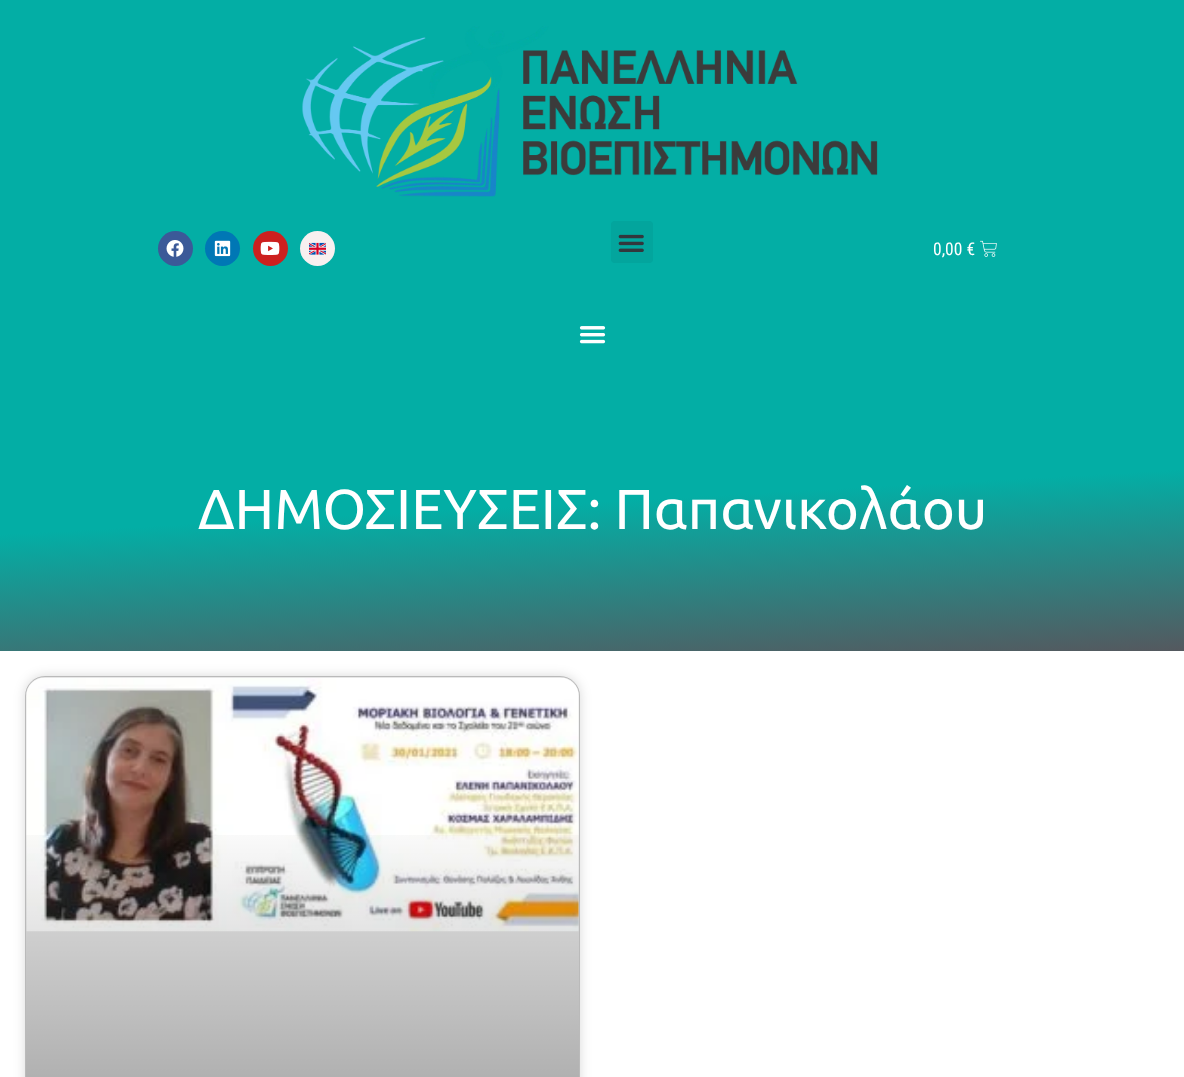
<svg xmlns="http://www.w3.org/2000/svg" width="1184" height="1077">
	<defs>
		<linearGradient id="g1" gradientUnits="userSpaceOnUse" x1="583" y1="336" x2="602" y2="682"><stop offset="0.48" stop-color="#03AEA5" /><stop offset="1" stop-color="#54595F" /></linearGradient>
		<clipPath id="clip1"><path d="M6 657H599V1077H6ZM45 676H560C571 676 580 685 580 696V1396C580 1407 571 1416 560 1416H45C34 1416 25 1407 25 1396V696C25 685 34 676 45 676Z" clip-rule="evenodd" /></clipPath>
		<linearGradient id="g2" gradientUnits="userSpaceOnUse" x1="303" y1="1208" x2="303" y2="678"><stop offset="0" stop-color="#000000" stop-opacity="0.35" /><stop offset="0.75" stop-color="#000000" stop-opacity="0" /></linearGradient>
	</defs>
	<rect width="100%" height="100%" fill="#FFFFFF" />
	<rect x="0" y="0" width="1184" height="366" fill="#03AEA5" />
	<image x="302" y="26" width="576" height="171" href="assets/img1.png" />
	<circle cx="175.5" cy="248.5" r="17.5" fill="#3B5998" />
	<image x="166" y="240" width="18" height="17" href="assets/img2.png" />
	<circle cx="222.5" cy="248.5" r="17.5" fill="#0077B5" />
	<image x="214" y="240" width="17" height="17" href="assets/img3.png" />
	<circle cx="270.5" cy="248.5" r="17.5" fill="#CD201F" />
	<image x="260" y="241" width="20" height="14" href="assets/img4.png" />
	<circle cx="317.5" cy="248.5" r="17.5" fill="#F8F0F0" />
	<image x="309" y="242" width="17" height="13" href="assets/img5.png" />
	<rect x="611" y="221" width="42" height="42" rx="4" fill="#03A59D" />
	<image x="618" y="234" width="26" height="18" href="assets/img6.png" />
	<text x="933" y="255" font-family="Roboto Condensed" font-size="17.5" fill="#FFFFFF">0,00 €</text>
	<image x="980" y="240" width="17" height="17" href="assets/img7.png" />
	<image x="579" y="326" width="27" height="18" href="assets/img8.png" />
	<rect x="0" y="366" width="1184" height="285" fill="url(#g1)" />
	<text x="198" y="529" font-family="Ubuntu" font-size="56.25" fill="#FFFFFF">ΔΗΜΟΣΙΕΥΣΕΙΣ: Παπανικολάου</text>
	<g clip-path="url(#clip1)">
		<rect x="25" y="676" width="555" height="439" rx="20" fill="#000000" fill-opacity="0.15" filter="blur(6px)" />
	</g>
	<rect x="25" y="676" width="555" height="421" rx="20" fill="#3C3C3B" fill-opacity="0.12" />
	<rect x="25.5" y="676.5" width="554" height="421" rx="19.5" fill="none" stroke="#7A7A7A" stroke-opacity="0.41" />
	<image x="26" y="678" width="553" height="254" href="assets/img9.png" />
	<rect x="26" y="835" width="553" height="242" fill="url(#g2)" />
</svg>
